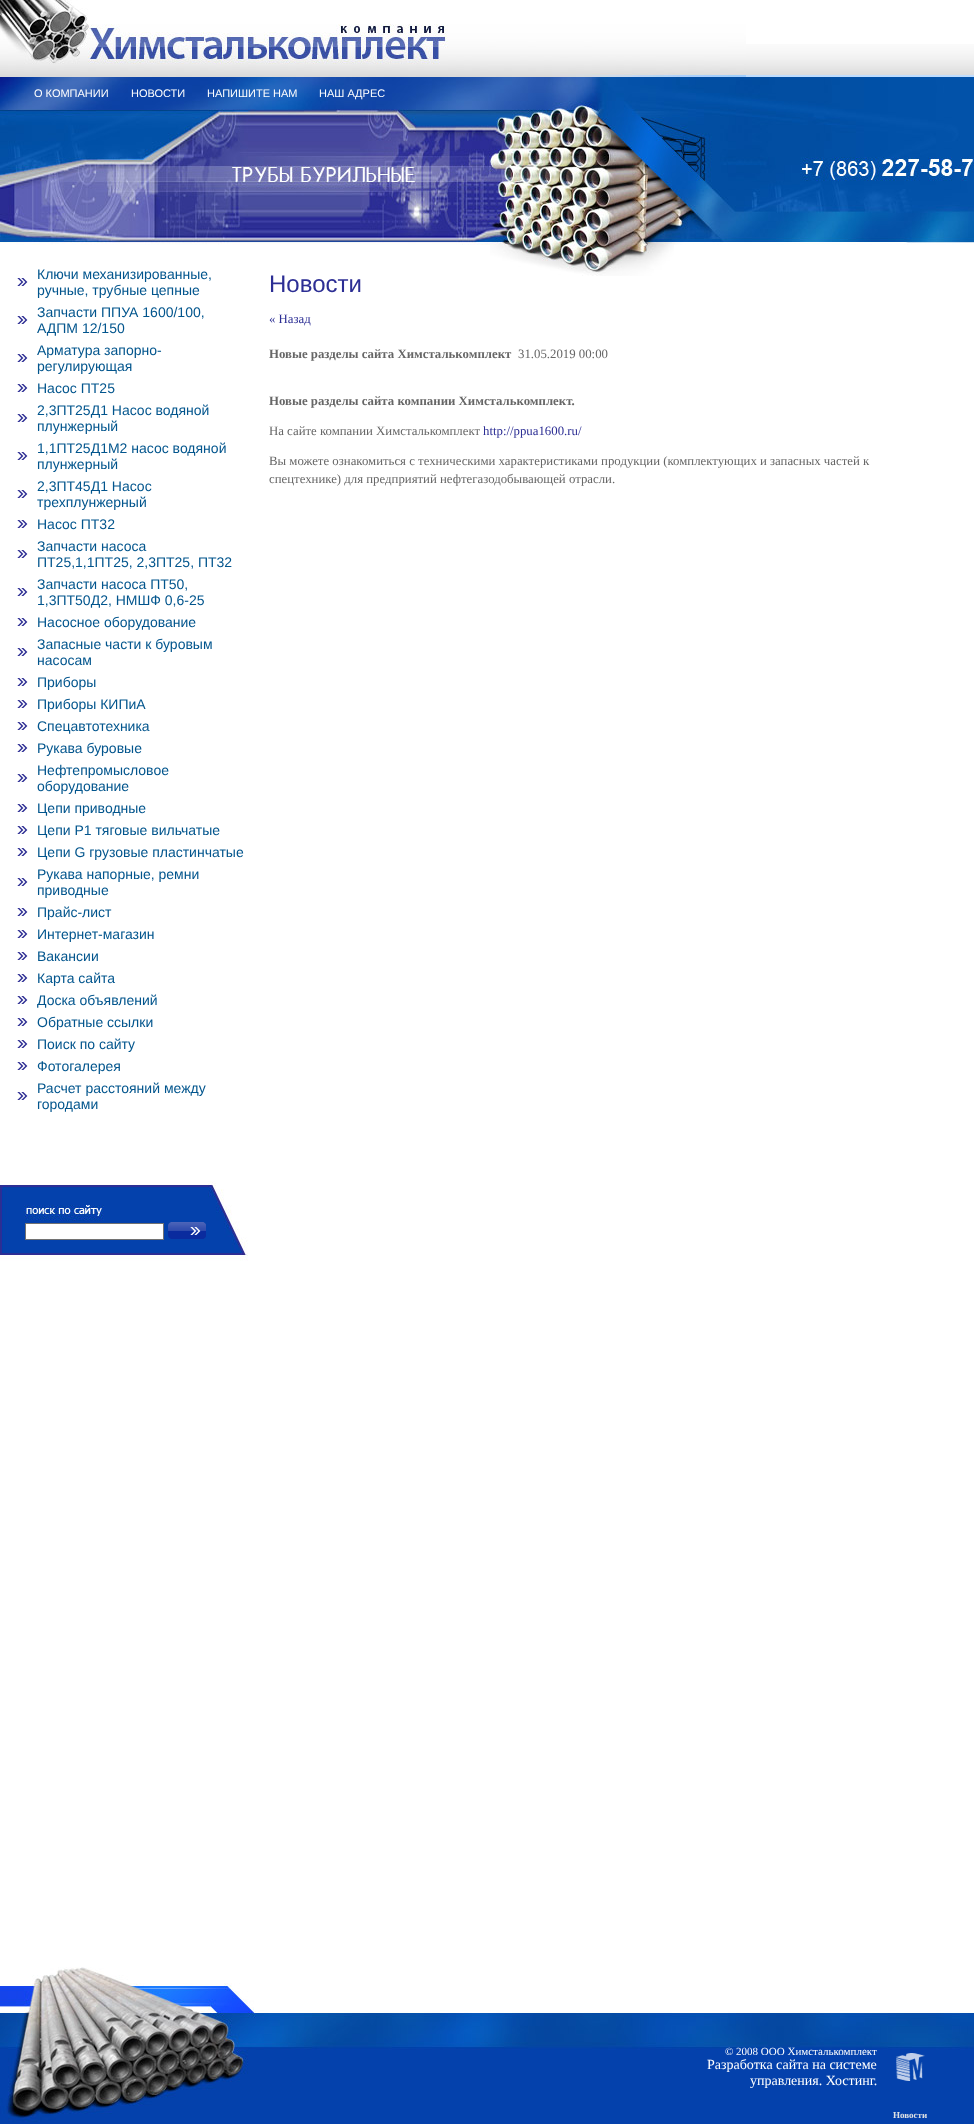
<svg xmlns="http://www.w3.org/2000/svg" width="974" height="2124">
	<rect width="100%" height="100%" fill="#FFFFFF" />
	<image x="746" y="44" width="228" height="33" href="assets/img1.png" />
	<image x="0" y="2122" width="974" height="2" href="assets/img2.png" />
	<image x="0" y="0" width="746" height="77" href="assets/img3.png" />
	<image x="0" y="77" width="974" height="168" href="assets/img4.png" />
	<g font-family="Liberation Sans" font-size="11" fill="#FFFFFF">
		<text x="34" y="97">О КОМПАНИИ</text>
		<text x="131" y="97">НОВОСТИ</text>
		<text x="207" y="97">НАПИШИТЕ НАМ</text>
		<text x="319" y="97">НАШ АДРЕС</text>
	</g>
	<image x="17" y="278" width="11" height="8" href="assets/img5.png" />
	<g font-family="Liberation Sans" font-size="14" fill="#02558D">
		<text x="37" y="279">Ключи механизированные,</text>
		<text x="37" y="295">ручные, трубные цепные</text>
	</g>
	<image x="17" y="316" width="11" height="8" href="assets/img5.png" />
	<g font-family="Liberation Sans" font-size="14" fill="#02558D">
		<text x="37" y="317">Запчасти ППУА 1600/100,</text>
		<text x="37" y="333">АДПМ 12/150</text>
	</g>
	<image x="17" y="354" width="11" height="8" href="assets/img5.png" />
	<g font-family="Liberation Sans" font-size="14" fill="#02558D">
		<text x="37" y="355">Арматура запорно-</text>
		<text x="37" y="371">регулирующая</text>
	</g>
	<image x="17" y="384" width="11" height="8" href="assets/img5.png" />
	<text x="37" y="393" font-family="Liberation Sans" font-size="14" fill="#02558D">Насос ПТ25</text>
	<image x="17" y="414" width="11" height="8" href="assets/img5.png" />
	<g font-family="Liberation Sans" font-size="14" fill="#02558D">
		<text x="37" y="415">2,3ПТ25Д1 Насос водяной</text>
		<text x="37" y="431">плунжерный</text>
	</g>
	<image x="17" y="452" width="11" height="8" href="assets/img5.png" />
	<g font-family="Liberation Sans" font-size="14" fill="#02558D">
		<text x="37" y="453">1,1ПТ25Д1М2 насос водяной</text>
		<text x="37" y="469">плунжерный</text>
	</g>
	<image x="17" y="490" width="11" height="8" href="assets/img5.png" />
	<g font-family="Liberation Sans" font-size="14" fill="#02558D">
		<text x="37" y="491">2,3ПТ45Д1 Насос</text>
		<text x="37" y="507">трехплунжерный</text>
	</g>
	<image x="17" y="520" width="11" height="8" href="assets/img5.png" />
	<text x="37" y="529" font-family="Liberation Sans" font-size="14" fill="#02558D">Насос ПТ32</text>
	<image x="17" y="550" width="11" height="8" href="assets/img5.png" />
	<g font-family="Liberation Sans" font-size="14" fill="#02558D">
		<text x="37" y="551">Запчасти насоса</text>
		<text x="37" y="567">ПТ25,1,1ПТ25, 2,3ПТ25, ПТ32</text>
	</g>
	<image x="17" y="588" width="11" height="8" href="assets/img5.png" />
	<g font-family="Liberation Sans" font-size="14" fill="#02558D">
		<text x="37" y="589">Запчасти насоса ПТ50,</text>
		<text x="37" y="605">1,3ПТ50Д2, НМШФ 0,6-25</text>
	</g>
	<image x="17" y="618" width="11" height="8" href="assets/img5.png" />
	<text x="37" y="627" font-family="Liberation Sans" font-size="14" fill="#02558D">Насосное оборудование</text>
	<image x="17" y="648" width="11" height="8" href="assets/img5.png" />
	<g font-family="Liberation Sans" font-size="14" fill="#02558D">
		<text x="37" y="649">Запасные части к буровым</text>
		<text x="37" y="665">насосам</text>
	</g>
	<image x="17" y="678" width="11" height="8" href="assets/img5.png" />
	<text x="37" y="687" font-family="Liberation Sans" font-size="14" fill="#02558D">Приборы</text>
	<image x="17" y="700" width="11" height="8" href="assets/img5.png" />
	<text x="37" y="709" font-family="Liberation Sans" font-size="14" fill="#02558D">Приборы КИПиА</text>
	<image x="17" y="722" width="11" height="8" href="assets/img5.png" />
	<text x="37" y="731" font-family="Liberation Sans" font-size="14" fill="#02558D">Спецавтотехника</text>
	<image x="17" y="744" width="11" height="8" href="assets/img5.png" />
	<text x="37" y="753" font-family="Liberation Sans" font-size="14" fill="#02558D">Рукава буровые</text>
	<image x="17" y="774" width="11" height="8" href="assets/img5.png" />
	<g font-family="Liberation Sans" font-size="14" fill="#02558D">
		<text x="37" y="775">Нефтепромысловое</text>
		<text x="37" y="791">оборудование</text>
	</g>
	<image x="17" y="804" width="11" height="8" href="assets/img5.png" />
	<text x="37" y="813" font-family="Liberation Sans" font-size="14" fill="#02558D">Цепи приводные</text>
	<image x="17" y="826" width="11" height="8" href="assets/img5.png" />
	<text x="37" y="835" font-family="Liberation Sans" font-size="14" fill="#02558D">Цепи Р1 тяговые вильчатые</text>
	<image x="17" y="848" width="11" height="8" href="assets/img5.png" />
	<text x="37" y="857" font-family="Liberation Sans" font-size="14" fill="#02558D">Цепи G грузовые пластинчатые</text>
	<image x="17" y="878" width="11" height="8" href="assets/img5.png" />
	<g font-family="Liberation Sans" font-size="14" fill="#02558D">
		<text x="37" y="879">Рукава напорные, ремни</text>
		<text x="37" y="895">приводные</text>
	</g>
	<image x="17" y="908" width="11" height="8" href="assets/img5.png" />
	<text x="37" y="917" font-family="Liberation Sans" font-size="14" fill="#02558D">Прайс-лист</text>
	<image x="17" y="930" width="11" height="8" href="assets/img5.png" />
	<text x="37" y="939" font-family="Liberation Sans" font-size="14" fill="#02558D">Интернет-магазин</text>
	<image x="17" y="952" width="11" height="8" href="assets/img5.png" />
	<text x="37" y="961" font-family="Liberation Sans" font-size="14" fill="#02558D">Вакансии</text>
	<image x="17" y="974" width="11" height="8" href="assets/img5.png" />
	<text x="37" y="983" font-family="Liberation Sans" font-size="14" fill="#02558D">Карта сайта</text>
	<image x="17" y="996" width="11" height="8" href="assets/img5.png" />
	<text x="37" y="1005" font-family="Liberation Sans" font-size="14" fill="#02558D">Доска объявлений</text>
	<image x="17" y="1018" width="11" height="8" href="assets/img5.png" />
	<text x="37" y="1027" font-family="Liberation Sans" font-size="14" fill="#02558D">Обратные ссылки</text>
	<image x="17" y="1040" width="11" height="8" href="assets/img5.png" />
	<text x="37" y="1049" font-family="Liberation Sans" font-size="14" fill="#02558D">Поиск по сайту</text>
	<image x="17" y="1062" width="11" height="8" href="assets/img5.png" />
	<text x="37" y="1071" font-family="Liberation Sans" font-size="14" fill="#02558D">Фотогалерея</text>
	<image x="17" y="1092" width="11" height="8" href="assets/img5.png" />
	<g font-family="Liberation Sans" font-size="14" fill="#02558D">
		<text x="37" y="1093">Расчет расстояний между</text>
		<text x="37" y="1109">городами</text>
	</g>
	<image x="0" y="1181" width="248" height="80" href="assets/img6.png" />
	<rect x="25.5" y="1223.5" width="138" height="16" fill="#FFFFFF" stroke="#727272" />
	<image x="168" y="1222" width="38" height="17" href="assets/img7.png" />
	<image x="0" y="1967" width="254" height="43" href="assets/img8.png" />
	<image x="490" y="245" width="184" height="31" href="assets/img9.png" />
	<text x="269" y="292" font-family="Liberation Sans" font-size="24" fill="#2C2E94">Новости</text>
	<text x="269" y="323" font-family="Liberation Serif" font-size="12.8" fill="#2C2E94">« Назад</text>
	<text x="269" y="358" font-family="Liberation Serif" font-size="12.8" font-weight="700" fill="#666666">Новые разделы сайта Химсталькомплект</text>
	<text x="518" y="358" font-family="Liberation Serif" font-size="12.8" fill="#666666">31.05.2019 00:00</text>
	<text x="269" y="405" font-family="Liberation Serif" font-size="12.8" font-weight="700" fill="#666666">Новые разделы сайта компании Химсталькомплект.</text>
	<text x="269" y="435" font-family="Liberation Serif" font-size="12.8" fill="#666666">На сайте компании Химсталькомплект</text>
	<text x="483" y="435" font-family="Liberation Serif" font-size="12.8" fill="#2C2E94">http://ppua1600.ru/</text>
	<g font-family="Liberation Serif" font-size="12.8" fill="#666666">
		<text x="269" y="465">Вы можете ознакомиться с техническими характеристиками продукции (комплектующих и запасных частей к</text>
		<text x="269" y="483">спецтехнике) для предприятий нефтегазодобывающей отрасли.</text>
	</g>
	<image x="0" y="2010" width="974" height="112" href="assets/img10.png" />
	<text x="725" y="2055" font-family="Liberation Serif" font-size="11" fill="#FFFFFF">© 2008 ООО Химсталькомплект</text>
	<g font-family="Liberation Serif" font-size="14" fill="#FFFFFF">
		<text x="707" y="2069">Разработка сайта на системе</text>
		<text x="750" y="2085">управления. Хостинг.</text>
	</g>
	<image x="896" y="2053" width="29" height="28" href="assets/img11.png" />
	<text x="893" y="2118" font-family="Liberation Serif" font-size="9" font-weight="700" fill="#DFE2E3">Новости</text>
</svg>
